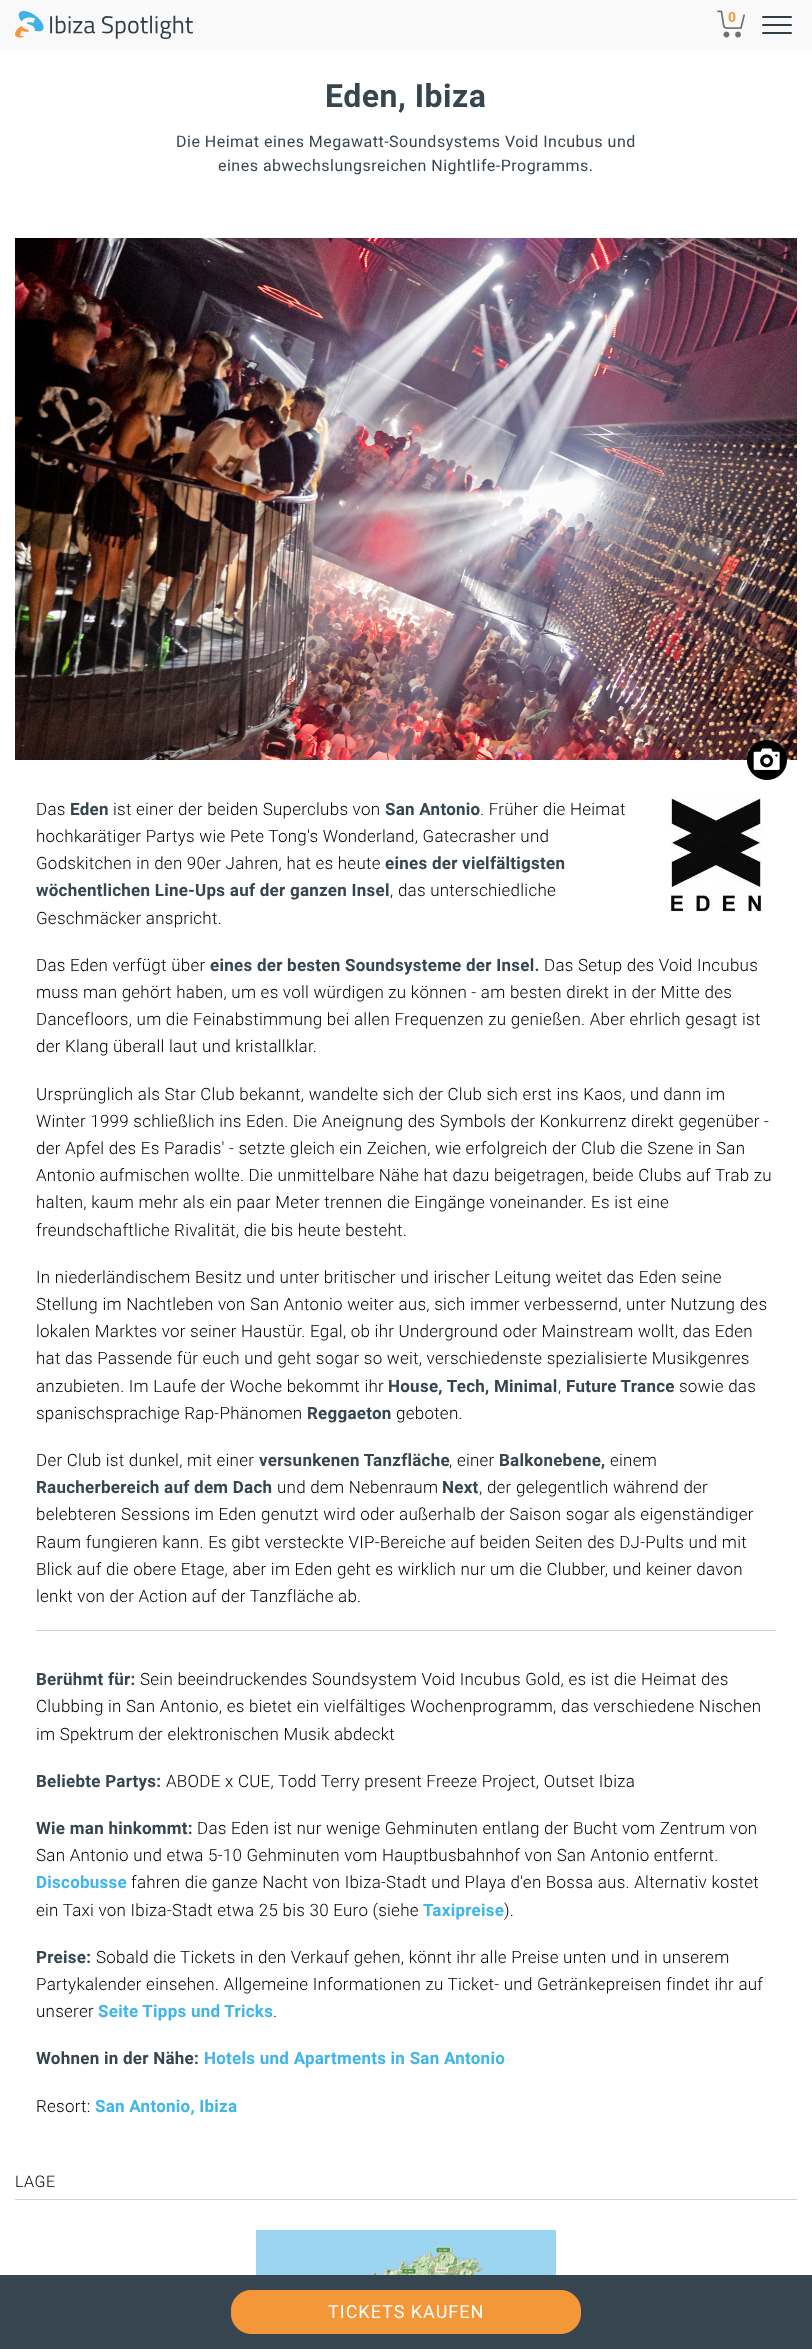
<svg xmlns="http://www.w3.org/2000/svg" width="812" height="2349">
	<rect width="100%" height="100%" fill="#FFFFFF" />
	<rect x="0" y="0" width="812" height="50" fill="#F9F9F9" />
	<image x="15" y="11" width="178" height="28" href="assets/img1.png" />
	<image x="717" y="10" width="28" height="28" href="assets/img2.png" />
	<text x="728" y="22" font-family="Roboto" font-size="14" font-weight="700" letter-spacing="0.5" fill="#F49739">0</text>
	<rect x="762" y="16" width="30" height="2" rx="1" fill="#303E47" />
	<rect x="762" y="24" width="30" height="2" rx="1" fill="#303E47" />
	<rect x="762" y="32" width="30" height="2" rx="1" fill="#303E47" />
	<text x="325" y="107" font-family="Roboto" font-size="32" font-weight="700" letter-spacing="0.5" fill="#36454F">Eden, Ibiza</text>
	<g font-family="Roboto" font-size="16" letter-spacing="0.5" fill="#36454F">
		<text x="176" y="147">Die Heimat eines Megawatt-Soundsystems Void Incubus und</text>
		<text x="218" y="171">eines abwechslungsreichen Nightlife-Programms.</text>
	</g>
	<image x="15" y="238" width="782" height="522" href="assets/img3.png" />
	<image x="747" y="740" width="40" height="40" href="assets/img4.png" />
	<text x="36" y="815" font-family="Roboto" font-size="17" font-weight="300" letter-spacing="0.25" fill="#000000">Das</text>
	<text x="70" y="815" font-family="Roboto" font-size="17" font-weight="700" letter-spacing="0.25" fill="#36454F">Eden</text>
	<text x="113" y="815" font-family="Roboto" font-size="17" font-weight="300" letter-spacing="0.25" fill="#000000">ist einer der beiden Superclubs von</text>
	<text x="385" y="815" font-family="Roboto" font-size="17" font-weight="700" letter-spacing="0.25" fill="#36454F">San Antonio</text>
	<g font-family="Roboto" font-size="17" font-weight="300" letter-spacing="0.25" fill="#000000">
		<text x="480" y="815">. Früher die Heimat</text>
		<text x="36" y="842">hochkarätiger Partys wie Pete Tong's Wonderland, Gatecrasher und</text>
		<text x="36" y="869">Godskitchen in den 90er Jahren, hat es heute</text>
	</g>
	<g font-family="Roboto" font-size="17" font-weight="700" letter-spacing="0.25" fill="#36454F">
		<text x="385" y="869">eines der vielfältigsten</text>
		<text x="36" y="896">wöchentlichen Line-Ups auf der ganzen Insel</text>
	</g>
	<g font-family="Roboto" font-size="17" font-weight="300" letter-spacing="0.25" fill="#000000">
		<text x="390" y="896">, das unterschiedliche</text>
		<text x="36" y="924">Geschmäcker anspricht.</text>
	</g>
	<image x="670" y="796" width="92" height="116" href="assets/img5.png" />
	<text x="36" y="971" font-family="Roboto" font-size="17" font-weight="300" letter-spacing="0.25" fill="#000000">Das Eden verfügt über</text>
	<text x="210" y="971" font-family="Roboto" font-size="17" font-weight="700" letter-spacing="0.25" fill="#36454F">eines der besten Soundsysteme der Insel.</text>
	<g font-family="Roboto" font-size="17" font-weight="300" letter-spacing="0.25" fill="#000000">
		<text x="544" y="971">Das Setup des Void Incubus</text>
		<text x="36" y="998">muss man gehört haben, um es voll würdigen zu können - am besten direkt in der Mitte des</text>
		<text x="36" y="1025">Dancefloors, um die Feinabstimmung bei allen Frequenzen zu genießen. Aber ehrlich gesagt ist</text>
		<text x="36" y="1052">der Klang überall laut und kristallklar.</text>
		<text x="36" y="1100">Ursprünglich als Star Club bekannt, wandelte sich der Club sich erst ins Kaos, und dann im</text>
		<text x="36" y="1127">Winter 1999 schließlich ins Eden. Die Aneignung des Symbols der Konkurrenz direkt gegenüber -</text>
		<text x="36" y="1154">der Apfel des Es Paradis' - setzte gleich ein Zeichen, wie erfolgreich der Club die Szene in San</text>
		<text x="36" y="1181">Antonio aufmischen wollte. Die unmittelbare Nähe hat dazu beigetragen, beide Clubs auf Trab zu</text>
		<text x="36" y="1208">halten, kaum mehr als ein paar Meter trennen die Eingänge voneinander. Es ist eine</text>
		<text x="36" y="1236">freundschaftliche Rivalität, die bis heute besteht.</text>
		<text x="36" y="1283">In niederländischem Besitz und unter britischer und irischer Leitung weitet das Eden seine</text>
		<text x="36" y="1310">Stellung im Nachtleben von San Antonio weiter aus, sich immer verbessernd, unter Nutzung des</text>
		<text x="36" y="1337">lokalen Marktes vor seiner Haustür. Egal, ob ihr Underground oder Mainstream wollt, das Eden</text>
		<text x="36" y="1364">hat das Passende für euch und geht sogar so weit, verschiedenste spezialisierte Musikgenres</text>
		<text x="36" y="1392">anzubieten. Im Laufe der Woche bekommt ihr</text>
	</g>
	<text x="388" y="1392" font-family="Roboto" font-size="17" font-weight="700" letter-spacing="0.25" fill="#36454F">House, Tech, Minimal</text>
	<text x="558" y="1392" font-family="Roboto" font-size="17" font-weight="300" letter-spacing="0.25" fill="#000000">,</text>
	<text x="566" y="1392" font-family="Roboto" font-size="17" font-weight="700" letter-spacing="0.25" fill="#36454F">Future Trance</text>
	<g font-family="Roboto" font-size="17" font-weight="300" letter-spacing="0.25" fill="#000000">
		<text x="679" y="1392">sowie das</text>
		<text x="36" y="1419">spanischsprachige Rap-Phänomen</text>
	</g>
	<text x="307" y="1419" font-family="Roboto" font-size="17" font-weight="700" letter-spacing="0.25" fill="#36454F">Reggaeton</text>
	<g font-family="Roboto" font-size="17" font-weight="300" letter-spacing="0.25" fill="#000000">
		<text x="396" y="1419">geboten.</text>
		<text x="36" y="1466">Der Club ist dunkel, mit einer</text>
	</g>
	<text x="259" y="1466" font-family="Roboto" font-size="17" font-weight="700" letter-spacing="0.25" fill="#36454F">versunkenen Tanzfläche</text>
	<text x="449" y="1466" font-family="Roboto" font-size="17" font-weight="300" letter-spacing="0.25" fill="#000000">, einer</text>
	<text x="499" y="1466" font-family="Roboto" font-size="17" font-weight="700" letter-spacing="0.25" fill="#36454F">Balkonebene,</text>
	<text x="610" y="1466" font-family="Roboto" font-size="17" font-weight="300" letter-spacing="0.25" fill="#000000">einem</text>
	<text x="36" y="1493" font-family="Roboto" font-size="17" font-weight="700" letter-spacing="0.25" fill="#36454F">Raucherbereich auf dem Dach</text>
	<text x="277" y="1493" font-family="Roboto" font-size="17" font-weight="300" letter-spacing="0.25" fill="#000000">und dem Nebenraum</text>
	<text x="442" y="1493" font-family="Roboto" font-size="17" font-weight="700" letter-spacing="0.25" fill="#36454F">Next</text>
	<g font-family="Roboto" font-size="17" font-weight="300" letter-spacing="0.25" fill="#000000">
		<text x="479" y="1493">, der gelegentlich während der</text>
		<text x="36" y="1520">belebteren Sessions im Eden genutzt wird oder außerhalb der Saison sogar als eigenständiger</text>
		<text x="36" y="1548">Raum fungieren kann. Es gibt versteckte VIP-Bereiche auf beiden Seiten des DJ-Pults und mit</text>
		<text x="36" y="1575">Blick auf die obere Etage, aber im Eden geht es wirklich nur um die Clubber, und keiner davon</text>
		<text x="36" y="1602">lenkt von der Action auf der Tanzfläche ab.</text>
	</g>
	<rect x="36" y="1630" width="740" height="1" fill="#D2D0D1" />
	<text x="36" y="1685" font-family="Roboto" font-size="17" font-weight="700" letter-spacing="0.25" fill="#36454F">Berühmt für:</text>
	<g font-family="Roboto" font-size="17" font-weight="300" letter-spacing="0.25" fill="#000000">
		<text x="140" y="1685">Sein beeindruckendes Soundsystem Void Incubus Gold, es ist die Heimat des</text>
		<text x="36" y="1712">Clubbing in San Antonio, es bietet ein vielfältiges Wochenprogramm, das verschiedene Nischen</text>
		<text x="36" y="1740">im Spektrum der elektronischen Musik abdeckt</text>
	</g>
	<text x="36" y="1787" font-family="Roboto" font-size="17" font-weight="700" letter-spacing="0.25" fill="#36454F">Beliebte Partys:</text>
	<text x="166" y="1787" font-family="Roboto" font-size="17" font-weight="300" letter-spacing="0.25" fill="#000000">ABODE x CUE, Todd Terry present Freeze Project, Outset Ibiza</text>
	<text x="36" y="1834" font-family="Roboto" font-size="17" font-weight="700" letter-spacing="0.25" fill="#36454F">Wie man hinkommt:</text>
	<g font-family="Roboto" font-size="17" font-weight="300" letter-spacing="0.25" fill="#000000">
		<text x="197" y="1834">Das Eden ist nur wenige Gehminuten entlang der Bucht vom Zentrum von</text>
		<text x="36" y="1861">San Antonio und etwa 5-10 Gehminuten vom Hauptbusbahnhof von San Antonio entfernt.</text>
	</g>
	<text x="36" y="1888" font-family="Roboto" font-size="17" font-weight="700" letter-spacing="0.25" fill="#3FB5E9">Discobusse</text>
	<g font-family="Roboto" font-size="17" font-weight="300" letter-spacing="0.25" fill="#000000">
		<text x="131" y="1888">fahren die ganze Nacht von Ibiza-Stadt und Playa d'en Bossa aus. Alternativ kostet</text>
		<text x="36" y="1916">ein Taxi von Ibiza-Stadt etwa 25 bis 30 Euro (siehe</text>
	</g>
	<text x="423" y="1916" font-family="Roboto" font-size="17" font-weight="700" letter-spacing="0.25" fill="#3FB5E9">Taxipreise</text>
	<text x="504" y="1916" font-family="Roboto" font-size="17" font-weight="300" letter-spacing="0.25" fill="#000000">).</text>
	<text x="36" y="1963" font-family="Roboto" font-size="17" font-weight="700" letter-spacing="0.25" fill="#36454F">Preise:</text>
	<g font-family="Roboto" font-size="17" font-weight="300" letter-spacing="0.25" fill="#000000">
		<text x="96" y="1963">Sobald die Tickets in den Verkauf gehen, könnt ihr alle Preise unten und in unserem</text>
		<text x="36" y="1990">Partykalender einsehen. Allgemeine Informationen zu Ticket- und Getränkepreisen findet ihr auf</text>
		<text x="36" y="2017">unserer</text>
	</g>
	<text x="98" y="2017" font-family="Roboto" font-size="17" font-weight="700" letter-spacing="0.25" fill="#3FB5E9">Seite Tipps und Tricks</text>
	<text x="273" y="2017" font-family="Roboto" font-size="17" font-weight="300" letter-spacing="0.25" fill="#000000">.</text>
	<text x="36" y="2064" font-family="Roboto" font-size="17" font-weight="700" letter-spacing="0.25" fill="#36454F">Wohnen in der Nähe:</text>
	<text x="204" y="2064" font-family="Roboto" font-size="17" font-weight="700" letter-spacing="0.25" fill="#3FB5E9">Hotels und Apartments in San Antonio</text>
	<text x="36" y="2112" font-family="Roboto" font-size="17" font-weight="300" letter-spacing="0.25" fill="#000000">Resort:</text>
	<text x="95" y="2112" font-family="Roboto" font-size="17" font-weight="700" letter-spacing="0.25" fill="#3FB5E9">San Antonio, Ibiza</text>
	<rect x="15" y="2199" width="782" height="1" fill="#D2D0D1" />
	<text x="15" y="2187" font-family="Roboto" font-size="16" font-weight="300" letter-spacing="0.5" fill="#000000">LAGE</text>
	<image x="256" y="2230" width="300" height="45" href="assets/img6.png" />
	<rect x="0" y="2275" width="812" height="74" fill="#36454F" />
	<rect x="231.5" y="2290.5" width="349" height="43" rx="19.5" fill="#F49739" stroke="#F49739" />
	<text x="328" y="2318" font-family="Roboto" font-size="18" letter-spacing="1" fill="#FFFFFF">TICKETS KAUFEN</text>
</svg>
